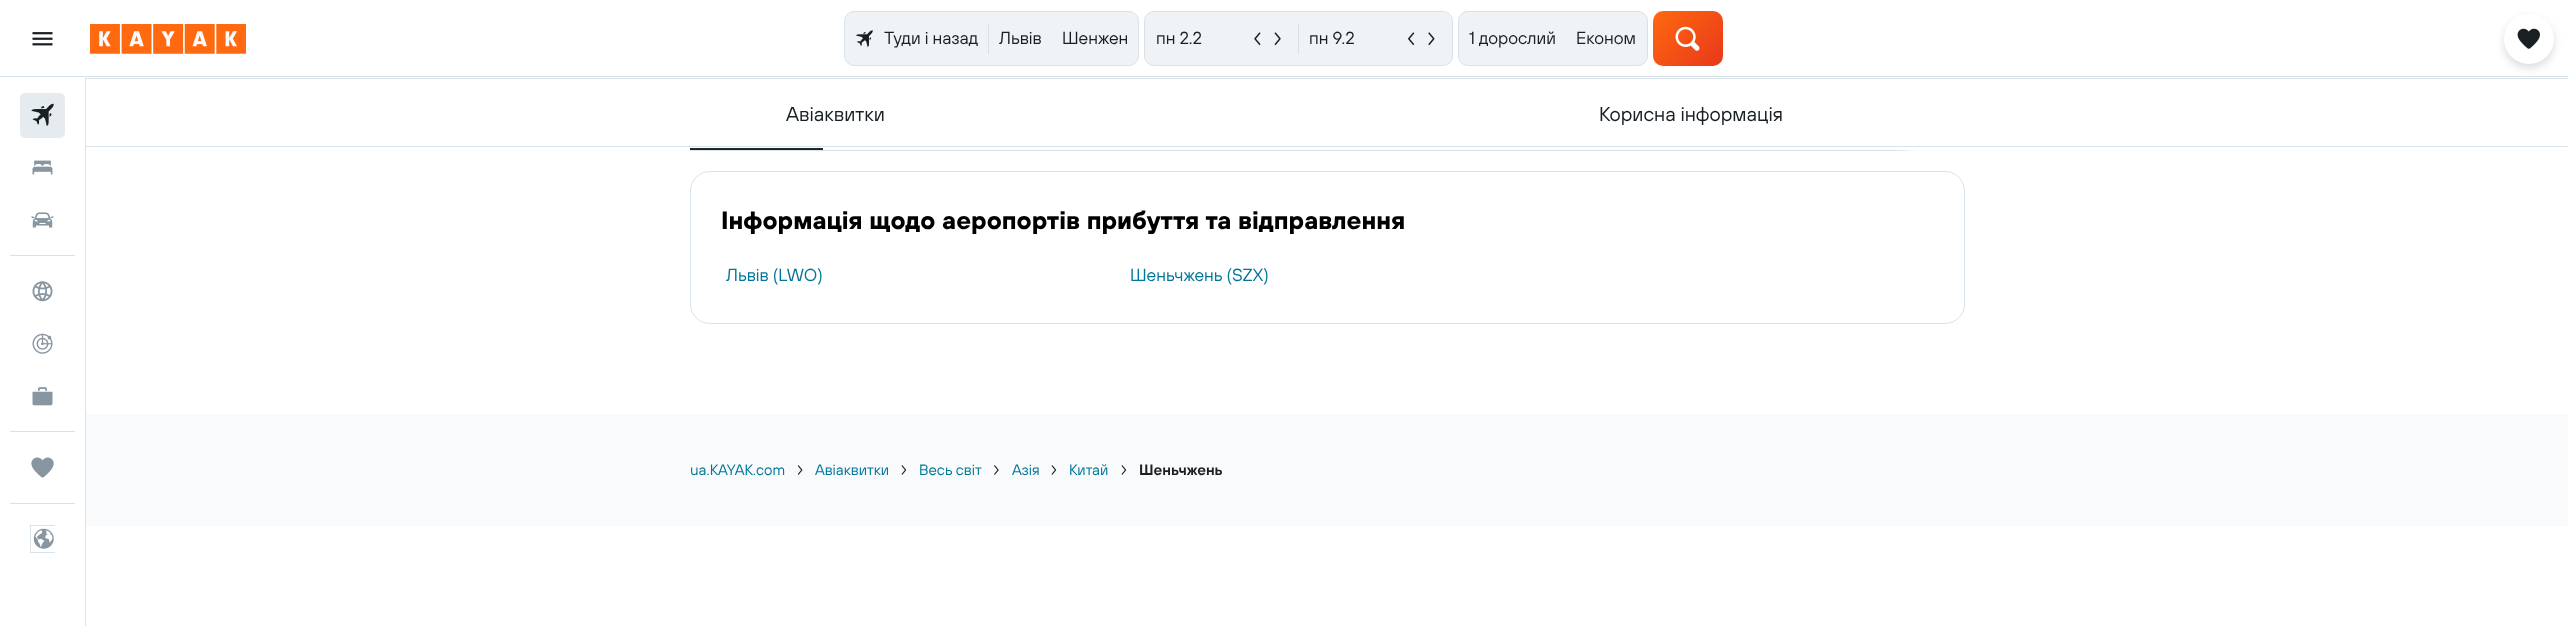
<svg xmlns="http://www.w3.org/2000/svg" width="2568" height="626">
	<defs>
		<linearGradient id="g1" gradientUnits="userSpaceOnUse" x1="1656" y1="7.5" x2="1719" y2="70"><stop offset="0" stop-color="#FF690F" /><stop offset="1" stop-color="#E8381B" /></linearGradient>
		<clipPath id="clip1"><rect x="30" y="525" width="25" height="28" /></clipPath>
		<linearGradient id="g2" gradientUnits="userSpaceOnUse" x1="1898" y1="123" x2="1965" y2="123"><stop offset="0" stop-color="#FFFFFF" stop-opacity="0" /><stop offset="0.3" stop-color="#FFFFFF" /></linearGradient>
	</defs>
	<rect width="100%" height="100%" fill="#FFFFFF" />
	<rect x="0" y="76" width="2568" height="1" fill="#D9E2E8" />
	<image x="32" y="32" width="21" height="14" href="assets/img1.png" />
	<image x="90" y="24" width="156" height="30" href="assets/img2.png" />
	<rect x="844.5" y="11.5" width="294" height="54" rx="9.5" fill="#F0F3F5" stroke="#D9E2E8" />
	<image x="856" y="30" width="17" height="17" href="assets/img3.png" />
	<text x="884" y="44" font-family="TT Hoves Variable" font-size="17.5" fill="#192024">Туди і назад</text>
	<rect x="988" y="24" width="1" height="30" fill="#D9E2E8" />
	<g font-family="TT Hoves Variable" font-size="17.5" fill="#192024">
		<text x="999" y="44">Львів</text>
		<text x="1062" y="44">Шенжен</text>
	</g>
	<rect x="1144.5" y="11.5" width="308" height="54" rx="9.5" fill="#F0F3F5" stroke="#D9E2E8" />
	<text x="1156" y="44" font-family="TT Hoves Variable" font-size="17.5" fill="#192024">пн 2.2</text>
	<image x="1254" y="32" width="7" height="14" href="assets/img4.png" />
	<image x="1274" y="32" width="7" height="14" href="assets/img5.png" />
	<rect x="1298" y="24" width="1" height="30" fill="#D9E2E8" />
	<text x="1309" y="44" font-family="TT Hoves Variable" font-size="17.5" fill="#192024">пн 9.2</text>
	<image x="1408" y="32" width="7" height="14" href="assets/img6.png" />
	<image x="1428" y="32" width="7" height="14" href="assets/img7.png" />
	<rect x="1458.5" y="11.5" width="189" height="54" rx="9.5" fill="#F0F3F5" stroke="#D9E2E8" />
	<g font-family="TT Hoves Variable" font-size="17.5" fill="#192024">
		<text x="1469" y="44">1 дорослий</text>
		<text x="1576" y="44">Економ</text>
	</g>
	<rect x="1653" y="11" width="70" height="55" rx="10" fill="url(#g1)" />
	<image x="1675" y="26" width="25" height="25" href="assets/img8.png" />
	<rect x="86" y="78" width="2482" height="1" fill="#D9E2E8" />
	<rect x="2504" y="18" width="50" height="50" rx="25" fill="#192024" fill-opacity="0.16" filter="blur(4px)" />
	<circle cx="2529" cy="39" r="25" fill="#FFFFFF" />
	<image x="2517" y="28" width="23" height="21" href="assets/img9.png" />
	<rect x="85" y="78" width="1" height="548" fill="#D9E2E8" />
	<rect x="20" y="93" width="45" height="45" rx="5" fill="#E6EBEF" />
	<image x="31" y="103" width="23" height="24" href="assets/img10.png" />
	<image x="32" y="160" width="21" height="15" href="assets/img11.png" />
	<image x="31" y="212" width="23" height="16" href="assets/img12.png" />
	<rect x="10" y="255" width="65" height="1" fill="#D9E2E8" />
	<image x="32" y="281" width="21" height="21" href="assets/img13.png" />
	<image x="32" y="333" width="21" height="21" href="assets/img14.png" />
	<image x="32" y="387" width="21" height="19" href="assets/img15.png" />
	<rect x="10" y="431" width="65" height="1" fill="#D9E2E8" />
	<image x="31" y="457" width="23" height="21" href="assets/img16.png" />
	<rect x="10" y="503" width="65" height="1" fill="#D9E2E8" />
	<g clip-path="url(#clip1)">
		<rect x="30.5" y="525.5" width="27" height="27" fill="none" stroke="#D9E2E8" />
	</g>
	<image x="33" y="528" width="21" height="21" href="assets/img17.png" />
	<rect x="86" y="146" width="2482" height="1" fill="#D9E2E8" />
	<g font-family="TT Hoves Variable" font-size="20" fill="#192024">
		<text x="786" y="121">Авіаквитки</text>
		<text x="1599" y="121">Корисна інформація</text>
	</g>
	<rect x="690" y="148" width="133" height="2" fill="#1F282D" />
	<rect x="690" y="150" width="1228" height="1" fill="#D9E2E8" />
	<rect x="1898" y="150" width="20" height="1" fill="url(#g2)" />
	<rect x="690.5" y="171.5" width="1274" height="152" rx="19.5" fill="none" stroke="#D9E2E8" />
	<text x="721" y="229" font-family="TT Hoves Variable" font-size="25" font-weight="700" fill="#000000">Інформація щодо аеропортів прибуття та відправлення</text>
	<g font-family="TT Hoves Variable" font-size="17.5" fill="#007799">
		<text x="726" y="281">Львів (LWO)</text>
		<text x="1130" y="281">Шеньчжень (SZX)</text>
	</g>
	<rect x="86" y="414" width="2482" height="112" fill="#F9FAFB" />
	<text x="690" y="475" font-family="TT Hoves Variable" font-size="15" fill="#007799">ua.KAYAK.com</text>
	<image x="797" y="465" width="6" height="10" href="assets/img18.png" />
	<text x="815" y="475" font-family="TT Hoves Variable" font-size="15" fill="#007799">Авіаквитки</text>
	<image x="901" y="465" width="6" height="10" href="assets/img19.png" />
	<text x="919" y="475" font-family="TT Hoves Variable" font-size="15" fill="#007799">Весь світ</text>
	<image x="994" y="465" width="5" height="10" href="assets/img20.png" />
	<text x="1012" y="475" font-family="TT Hoves Variable" font-size="15" fill="#007799">Азія</text>
	<image x="1051" y="465" width="6" height="10" href="assets/img19.png" />
	<text x="1069" y="475" font-family="TT Hoves Variable" font-size="15" fill="#007799">Китай</text>
	<image x="1121" y="465" width="6" height="10" href="assets/img19.png" />
	<text x="1139" y="475" font-family="TT Hoves Variable" font-size="15" font-weight="600" fill="#192024">Шеньчжень</text>
</svg>
